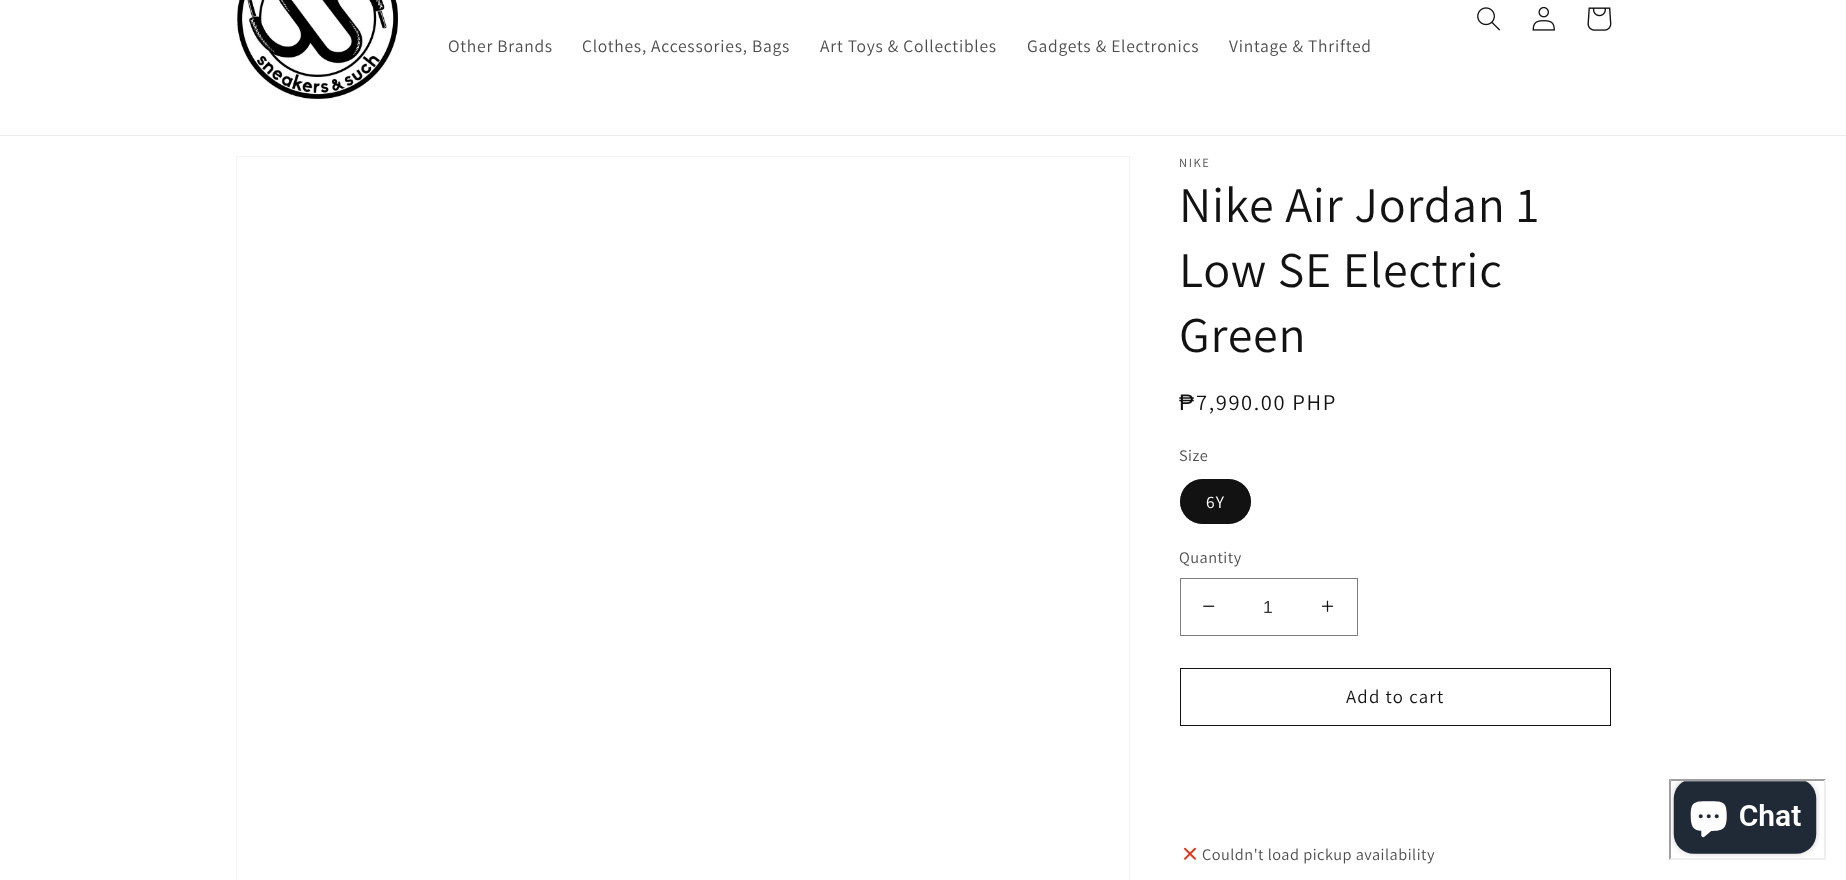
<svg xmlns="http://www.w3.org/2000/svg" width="1846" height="880">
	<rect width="100%" height="100%" fill="#FFFFFF" />
	<rect x="0" y="135" width="1846" height="1" fill="#ECECEC" />
	<image x="237" y="0" width="161" height="100" href="assets/img1.png" />
	<image x="1477" y="7" width="23" height="24" href="assets/img2.png" />
	<image x="1532" y="6" width="23" height="25" href="assets/img3.png" />
	<image x="1587" y="7" width="25" height="24" href="assets/img4.png" />
	<g font-family="Assistant" font-size="17.5" letter-spacing="0.75" fill="#4D4D4D">
		<text x="448" y="52">Other Brands</text>
		<text x="582" y="52">Clothes, Accessories, Bags</text>
		<text x="820" y="52">Art Toys &amp; Collectibles</text>
		<text x="1027" y="52">Gadgets &amp; Electronics</text>
		<text x="1229" y="52">Vintage &amp; Thrifted</text>
	</g>
	<rect x="236.5" y="156.5" width="893" height="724" fill="none" stroke="#F3F3F3" />
	<text x="1179" y="167" font-family="Assistant" font-size="12.5" letter-spacing="1.6" fill="#4D4D4D">NIKE</text>
	<g font-family="Assistant" font-size="50" letter-spacing="0.75" fill="#121212">
		<text x="1179" y="222">Nike Air Jordan 1</text>
		<text x="1179" y="287">Low SE Electric</text>
		<text x="1179" y="352">Green</text>
	</g>
	<text x="1179" y="410" font-family="Liberation Sans" font-size="22.5" letter-spacing="1.6" fill="#121212">₱</text>
	<text x="1196" y="410" font-family="Assistant" font-size="22.5" letter-spacing="1.6" fill="#121212">7,990.00 PHP</text>
	<text x="1179" y="461" font-family="Assistant" font-size="16.25" letter-spacing="0.5" fill="#4D4D4D">Size</text>
	<rect x="1180" y="479" width="71" height="45" rx="22.5" fill="#121212" />
	<rect x="1180.5" y="479.5" width="70" height="44" rx="22" fill="none" stroke="#121212" stroke-opacity="0.55" />
	<text x="1206" y="508" font-family="Assistant" font-size="17.5" letter-spacing="1.25" fill="#FFFFFF">6Y</text>
	<text x="1179" y="563" font-family="Assistant" font-size="16.25" letter-spacing="0.5" fill="#4D4D4D">Quantity</text>
	<image x="1203" y="605" width="12" height="2" href="assets/img5.png" />
	<image x="1321" y="600" width="13" height="12" href="assets/img6.png" />
	<rect x="1180.5" y="578.5" width="177" height="57" fill="none" stroke="#7D7D7D" />
	<text x="1263" y="613" font-family="Liberation Sans" font-size="17.5" fill="#363636">1</text>
	<rect x="1180.5" y="668.5" width="430" height="57" fill="none" stroke="#121212" />
	<text x="1346" y="703" font-family="Assistant" font-size="18.75" letter-spacing="1.25" fill="#121212">Add to cart</text>
	<image x="1183" y="847" width="14" height="14" href="assets/img7.png" />
	<text x="1202" y="860" font-family="Assistant" font-size="16.25" letter-spacing="0.5" fill="#4D4D4D">Couldn't load pickup availability</text>
	<path d="M1669 779H1826L1824 781H1671Z" fill="#9F9F9F" />
	<path d="M1826 779V860L1824 858V781Z" fill="#EEEEEE" />
	<path d="M1826 860H1669L1671 858H1824Z" fill="#EEEEEE" />
	<path d="M1669 860V779L1671 781V858Z" fill="#9F9F9F" />
	<image x="1671" y="781" width="149" height="76" href="assets/img8.png" />
</svg>
